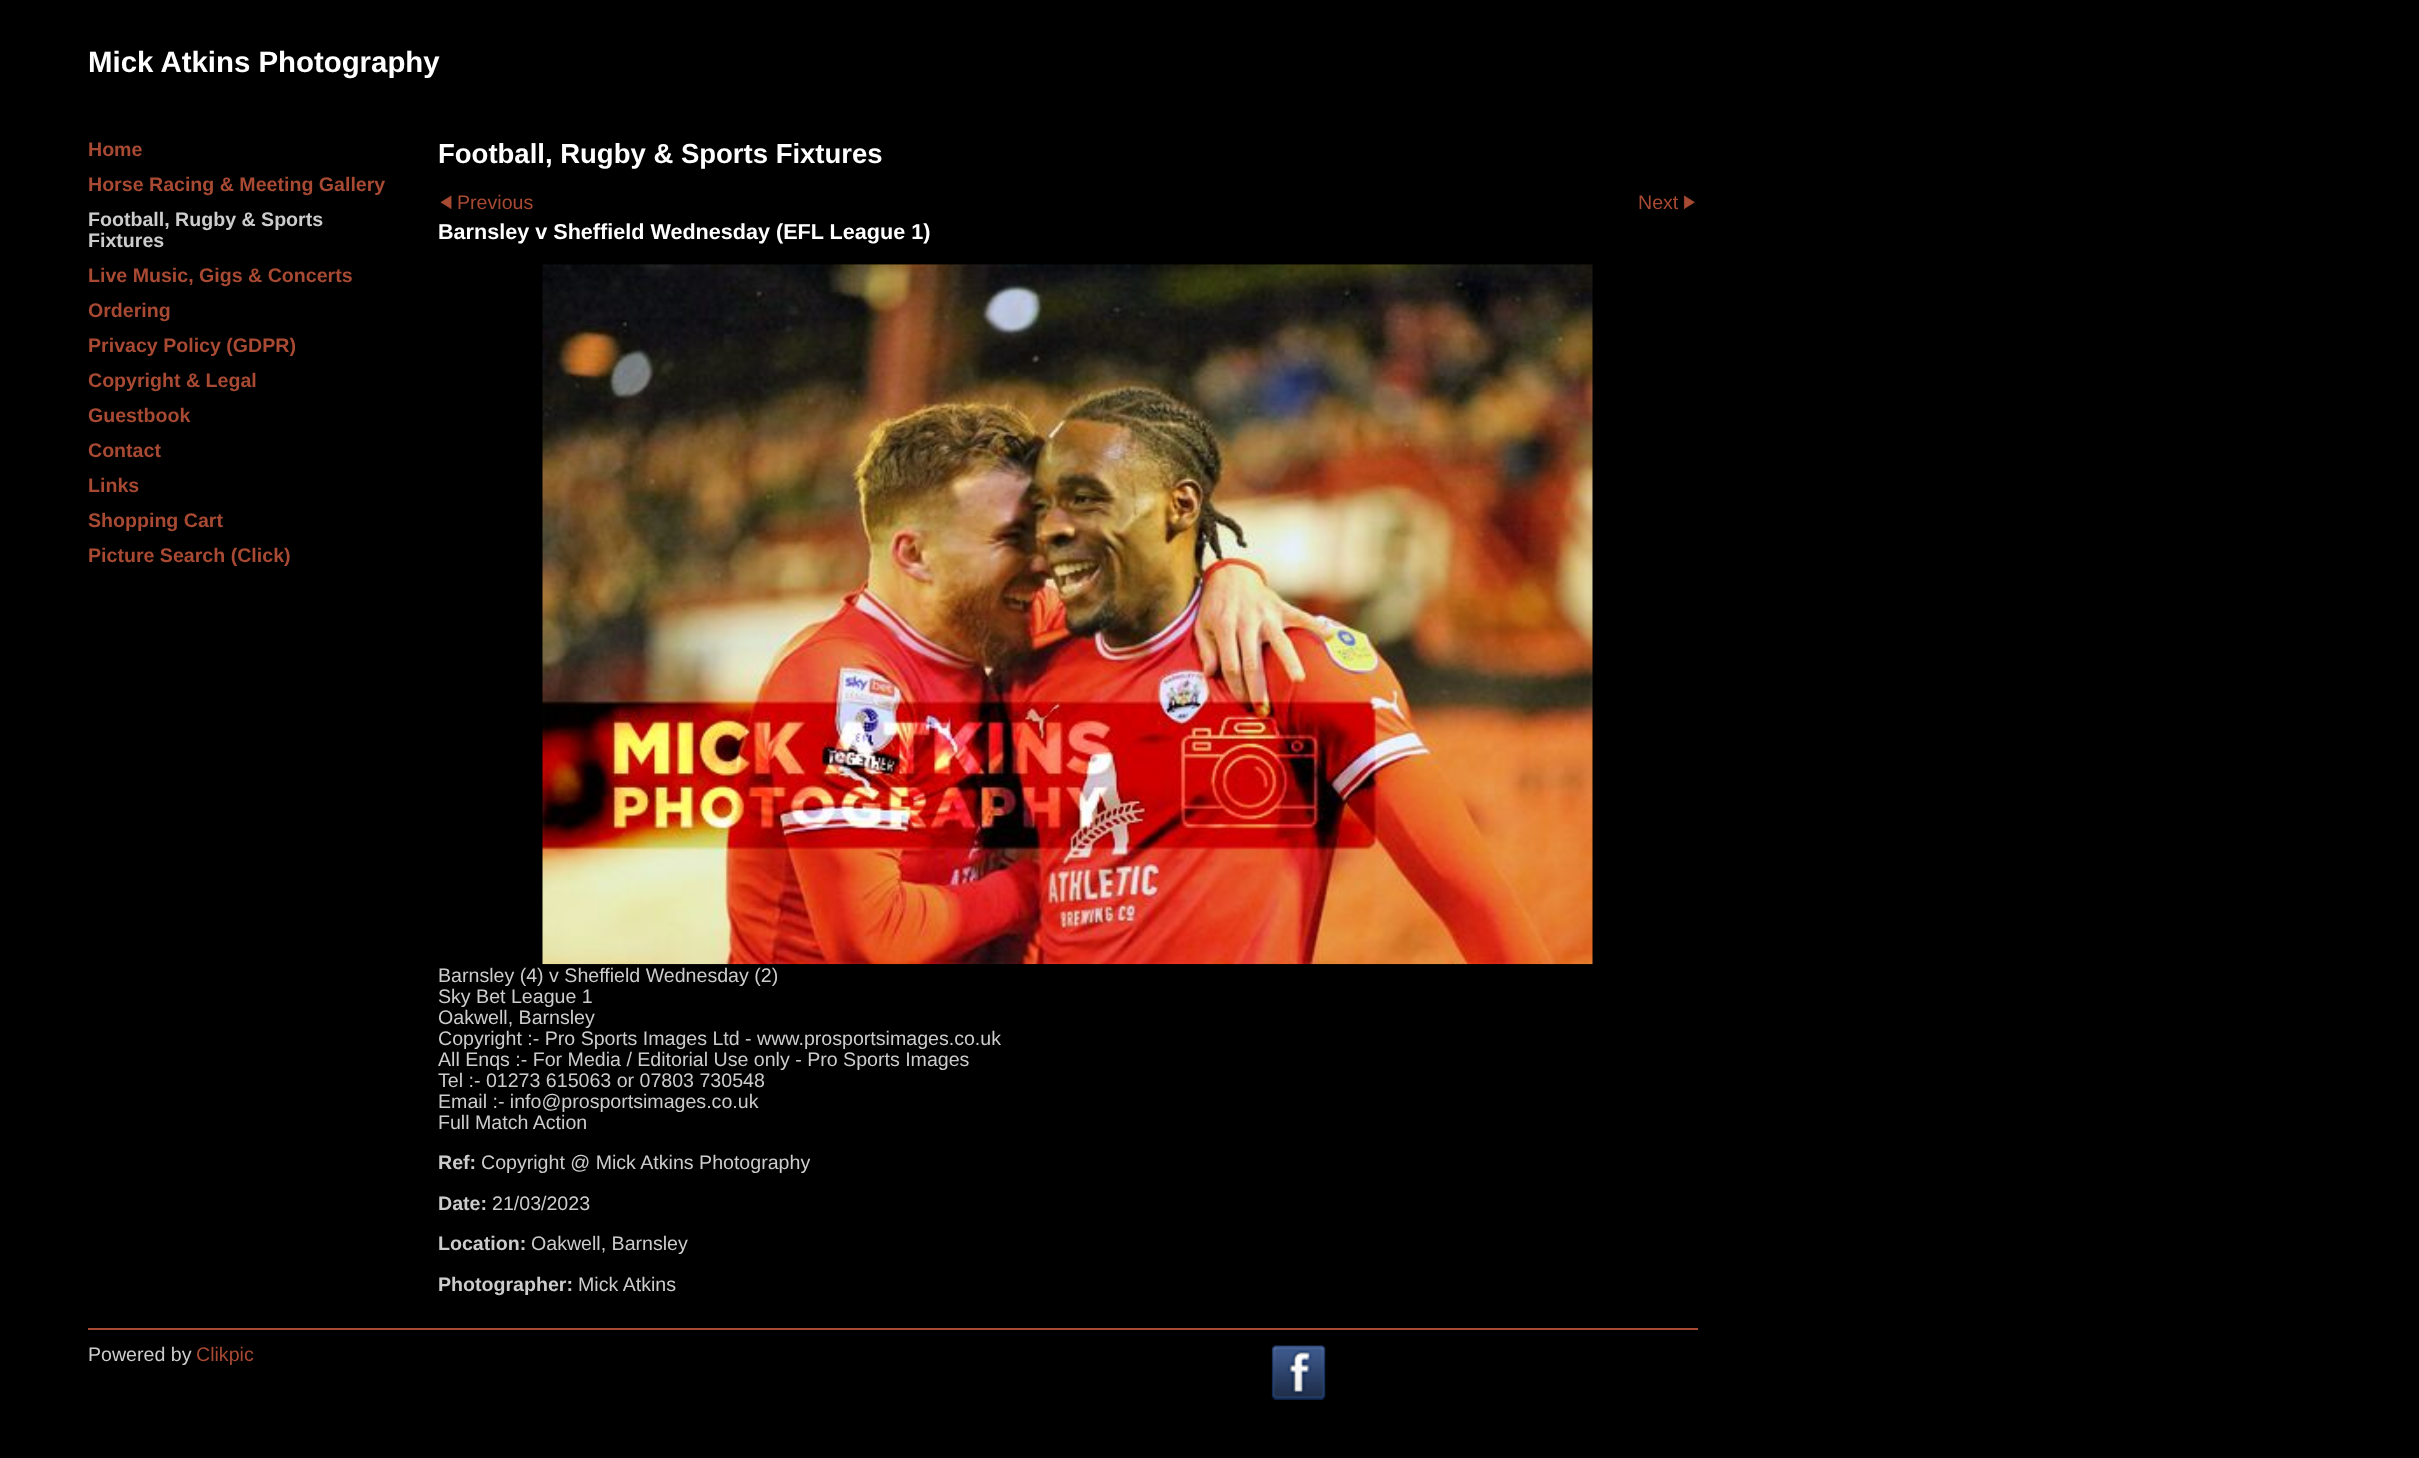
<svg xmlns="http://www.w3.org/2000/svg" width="2419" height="1458">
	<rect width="100%" height="100%" fill="#000000" />
	<text x="88" y="72" font-family="Liberation Sans" font-size="29.4" font-weight="700" fill="#FFFFFF">Mick Atkins Photography</text>
	<g font-family="Liberation Sans" font-size="19.6" font-weight="700" fill="#A84A33">
		<text x="88" y="156">Home</text>
		<text x="88" y="191">Horse Racing &amp; Meeting Gallery</text>
	</g>
	<g font-family="Liberation Sans" font-size="19.6" font-weight="700" fill="#CCCCCC">
		<text x="88" y="226">Football, Rugby &amp; Sports</text>
		<text x="88" y="247">Fixtures</text>
	</g>
	<g font-family="Liberation Sans" font-size="19.6" font-weight="700" fill="#A84A33">
		<text x="88" y="282">Live Music, Gigs &amp; Concerts</text>
		<text x="88" y="317">Ordering</text>
		<text x="88" y="352">Privacy Policy (GDPR)</text>
		<text x="88" y="387">Copyright &amp; Legal</text>
		<text x="88" y="422">Guestbook</text>
		<text x="88" y="457">Contact</text>
		<text x="88" y="492">Links</text>
		<text x="88" y="527">Shopping Cart</text>
		<text x="88" y="562">Picture Search (Click)</text>
	</g>
	<text x="438" y="163" font-family="Liberation Sans" font-size="27.5" font-weight="700" fill="#FFFFFF">Football, Rugby &amp; Sports Fixtures</text>
	<image x="440" y="195" width="12" height="14" href="assets/img1.png" />
	<g font-family="Liberation Sans" font-size="19.6" fill="#A84A33">
		<text x="457" y="209">Previous</text>
		<text x="1638" y="209">Next</text>
	</g>
	<image x="1683" y="195" width="12" height="14" href="assets/img2.png" />
	<text x="438" y="239" font-family="Liberation Sans" font-size="21.6" font-weight="700" fill="#FFFFFF">Barnsley v Sheffield Wednesday (EFL League 1)</text>
	<image x="542" y="264" width="1051" height="701" href="assets/img3.png" />
	<g font-family="Liberation Sans" font-size="19.6" fill="#CCCCCC">
		<text x="438" y="982">Barnsley (4) v Sheffield Wednesday (2)</text>
		<text x="438" y="1003">Sky Bet League 1</text>
		<text x="438" y="1024">Oakwell, Barnsley</text>
		<text x="438" y="1045">Copyright :- Pro Sports Images Ltd - www.prosportsimages.co.uk</text>
		<text x="438" y="1066">All Enqs :- For Media / Editorial Use only - Pro Sports Images</text>
		<text x="438" y="1087">Tel :- 01273 615063 or 07803 730548</text>
		<text x="438" y="1108">Email :- info@prosportsimages.co.uk</text>
		<text x="438" y="1129">Full Match Action</text>
	</g>
	<text x="438" y="1169" font-family="Liberation Sans" font-size="19.6" font-weight="700" fill="#CCCCCC">Ref:</text>
	<text x="481" y="1169" font-family="Liberation Sans" font-size="19.6" fill="#CCCCCC">Copyright @ Mick Atkins Photography</text>
	<text x="438" y="1210" font-family="Liberation Sans" font-size="19.6" font-weight="700" fill="#CCCCCC">Date:</text>
	<text x="492" y="1210" font-family="Liberation Sans" font-size="19.6" fill="#CCCCCC">21/03/2023</text>
	<text x="438" y="1250" font-family="Liberation Sans" font-size="19.6" font-weight="700" fill="#CCCCCC">Location:</text>
	<text x="531" y="1250" font-family="Liberation Sans" font-size="19.6" fill="#CCCCCC">Oakwell, Barnsley</text>
	<text x="438" y="1291" font-family="Liberation Sans" font-size="19.6" font-weight="700" fill="#CCCCCC">Photographer:</text>
	<text x="578" y="1291" font-family="Liberation Sans" font-size="19.6" fill="#CCCCCC">Mick Atkins</text>
	<rect x="88" y="1328" width="1610" height="2" fill="#A84A33" />
	<text x="88" y="1361" font-family="Liberation Sans" font-size="19.6" fill="#CCCCCC">Powered by</text>
	<text x="196" y="1361" font-family="Liberation Sans" font-size="19.6" fill="#A84A33">Clikpic</text>
	<image x="1271" y="1345" width="55" height="55" href="assets/img4.png" />
</svg>
